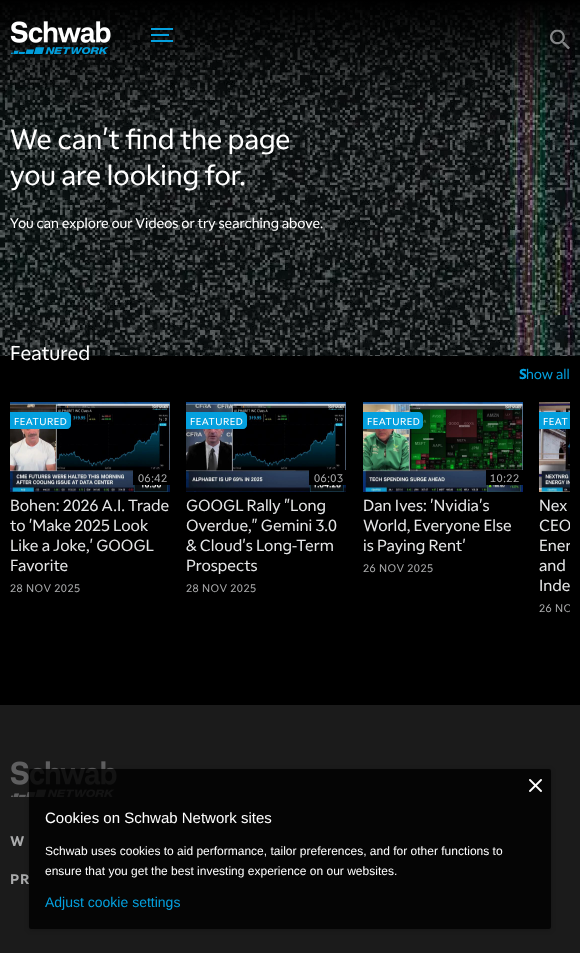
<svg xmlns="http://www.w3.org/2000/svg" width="580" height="953">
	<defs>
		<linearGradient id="g1" gradientUnits="userSpaceOnUse" x1="290" y1="0" x2="290" y2="130"><stop offset="0" stop-color="#000000" /><stop offset="0.52" stop-color="#000000" stop-opacity="0.36" /><stop offset="0.99" stop-color="#000000" stop-opacity="0" /></linearGradient>
		<clipPath id="clip1"><rect x="539" y="495" width="31" height="100" /></clipPath>
		<clipPath id="clip2"><rect x="10" y="402" width="560" height="233" /></clipPath>
		<clipPath id="clip3"><path d="M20 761H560V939H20ZM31 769H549C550 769 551 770 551 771V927C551 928 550 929 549 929H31C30 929 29 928 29 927V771C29 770 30 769 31 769Z" clip-rule="evenodd" /></clipPath>
	</defs>
	<rect width="100%" height="100%" fill="#000000" />
	<image x="0" y="1" width="580" height="355" href="assets/img3.png" />
	<rect x="0" y="1" width="580" height="124" fill="url(#g1)" />
	<image x="10" y="21" width="101" height="33" href="assets/img1.png" />
	<rect x="151" y="28" width="22" height="2" fill="#04A0DE" />
	<rect x="151" y="34" width="18" height="2" fill="#04A0DE" />
	<rect x="151" y="40" width="22" height="2" fill="#04A0DE" />
	<image x="550" y="29" width="20" height="21" href="assets/img2.png" />
	<g font-family="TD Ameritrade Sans" font-size="28" fill="#FFFFFF">
		<text x="10" y="149">We can't find the page</text>
		<text x="10" y="185">you are looking for.</text>
	</g>
	<text x="10" y="228" font-family="TD Ameritrade Sans" font-size="14" fill="#FFFFFF">You can explore our Videos or try searching above.</text>
	<text x="10" y="360" font-family="TD Ameritrade Sans" font-size="20" fill="#FFFFFF">Featured</text>
	<text x="519" y="379" font-family="Noto Sans" font-size="14" font-weight="800" fill="#04A0DE">S</text>
	<text x="526" y="379" font-family="TD Ameritrade Sans" font-size="14" fill="#04A0DE">how all</text>
	<image x="10" y="402" width="160" height="90" href="assets/img4.png" />
	<path d="M10 412H67C69 412 71 414 71 416V425C71 427 69 429 67 429H10Z" fill="#04A0DE" />
	<text x="14" y="425" font-family="TD Ameritrade Sans" font-size="10" letter-spacing="0.5" fill="#FFFFFF">FEATURED</text>
	<rect x="133" y="470" width="37" height="15" fill="#000000" />
	<text x="138" y="482" font-family="TD Ameritrade Sans" font-size="11" letter-spacing="0.5" fill="#AAABAC">06:42</text>
	<g font-family="TD Ameritrade Sans" font-size="16" fill="#E5E6E7">
		<text x="10" y="511">Bohen: 2026 A.I. Trade</text>
		<text x="10" y="531">to 'Make 2025 Look</text>
		<text x="10" y="551">Like a Joke,' GOOGL</text>
		<text x="10" y="571">Favorite</text>
	</g>
	<text x="10" y="592" font-family="TD Ameritrade Sans" font-size="11" letter-spacing="0.5" fill="#AAABAC">28 NOV 2025</text>
	<image x="186" y="402" width="160" height="90" href="assets/img5.png" />
	<path d="M186 412H243C245 412 247 414 247 416V425C247 427 245 429 243 429H186Z" fill="#04A0DE" />
	<text x="190" y="425" font-family="TD Ameritrade Sans" font-size="10" letter-spacing="0.5" fill="#FFFFFF">FEATURED</text>
	<rect x="309" y="470" width="37" height="15" fill="#000000" />
	<text x="314" y="482" font-family="TD Ameritrade Sans" font-size="11" letter-spacing="0.5" fill="#AAABAC">06:03</text>
	<g font-family="TD Ameritrade Sans" font-size="16" fill="#E5E6E7">
		<text x="186" y="511">GOOGL Rally "Long</text>
		<text x="186" y="531">Overdue," Gemini 3.0</text>
		<text x="186" y="551">&amp; Cloud's Long-Term</text>
		<text x="186" y="571">Prospects</text>
	</g>
	<text x="186" y="592" font-family="TD Ameritrade Sans" font-size="11" letter-spacing="0.5" fill="#AAABAC">28 NOV 2025</text>
	<image x="363" y="402" width="160" height="90" href="assets/img6.png" />
	<path d="M363 412H419C421 412 423 414 423 416V425C423 427 421 429 419 429H363Z" fill="#04A0DE" />
	<text x="367" y="425" font-family="TD Ameritrade Sans" font-size="10" letter-spacing="0.5" fill="#FFFFFF">FEATURED</text>
	<rect x="486" y="470" width="37" height="15" fill="#000000" />
	<text x="490" y="482" font-family="TD Ameritrade Sans" font-size="11" letter-spacing="0.5" fill="#AAABAC">10:22</text>
	<g font-family="TD Ameritrade Sans" font-size="16" fill="#E5E6E7">
		<text x="363" y="511">Dan Ives: 'Nvidia's</text>
		<text x="363" y="531">World, Everyone Else</text>
		<text x="363" y="551">is Paying Rent'</text>
	</g>
	<text x="363" y="572" font-family="TD Ameritrade Sans" font-size="11" letter-spacing="0.5" fill="#AAABAC">26 NOV 2025</text>
	<image x="539" y="402" width="31" height="90" href="assets/img7.png" />
	<rect x="539" y="412" width="31" height="17" fill="#04A0DE" />
	<text x="543" y="425" font-family="TD Ameritrade Sans" font-size="10" letter-spacing="0.5" fill="#FFFFFF">FEAT</text>
	<text x="539" y="511" font-family="TD Ameritrade Sans" font-size="16" fill="#E5E6E7">Nex</text>
	<g clip-path="url(#clip1)">
		<g font-family="TD Ameritrade Sans" font-size="16" fill="#E5E6E7">
			<text x="539" y="531">CEO</text>
			<text x="539" y="551">Ener</text>
		</g>
	</g>
	<g font-family="TD Ameritrade Sans" font-size="16" fill="#E5E6E7">
		<text x="539" y="571">and</text>
		<text x="539" y="591">Inde</text>
	</g>
	<g clip-path="url(#clip2)">
		<text x="539" y="612" font-family="TD Ameritrade Sans" font-size="11" letter-spacing="0.5" fill="#AAABAC">26 NO</text>
	</g>
	<rect x="0" y="705" width="580" height="248" fill="#1B1B1B" />
	<image x="10" y="761" width="107" height="36" href="assets/img8.png" />
	<g font-family="TD Ameritrade Sans" font-size="14" font-weight="700" letter-spacing="1" fill="#AAABAC">
		<text x="10" y="846">W</text>
		<text x="10" y="884">PR</text>
	</g>
	<g clip-path="url(#clip3)">
		<rect x="29" y="770" width="522" height="160" rx="2" fill="#000000" fill-opacity="0.2" filter="blur(2.5px)" />
	</g>
	<rect x="29" y="769" width="522" height="160" rx="2" fill="#000000" fill-opacity="0.8" />
	<image x="529" y="779" width="13" height="13" href="assets/img9.png" />
	<text x="45" y="823" font-family="Liberation Sans" font-size="15" fill="#FFFFFF">Cookies on Schwab Network sites</text>
	<g font-family="Liberation Sans" font-size="12" fill="#FFFFFF">
		<text x="45" y="855">Schwab uses cookies to aid performance, tailor preferences, and for other functions to</text>
		<text x="45" y="875">ensure that you get the best investing experience on our websites.</text>
	</g>
	<text x="45" y="907" font-family="Liberation Sans" font-size="14" fill="#04A0DE">Adjust cookie settings</text>
</svg>
